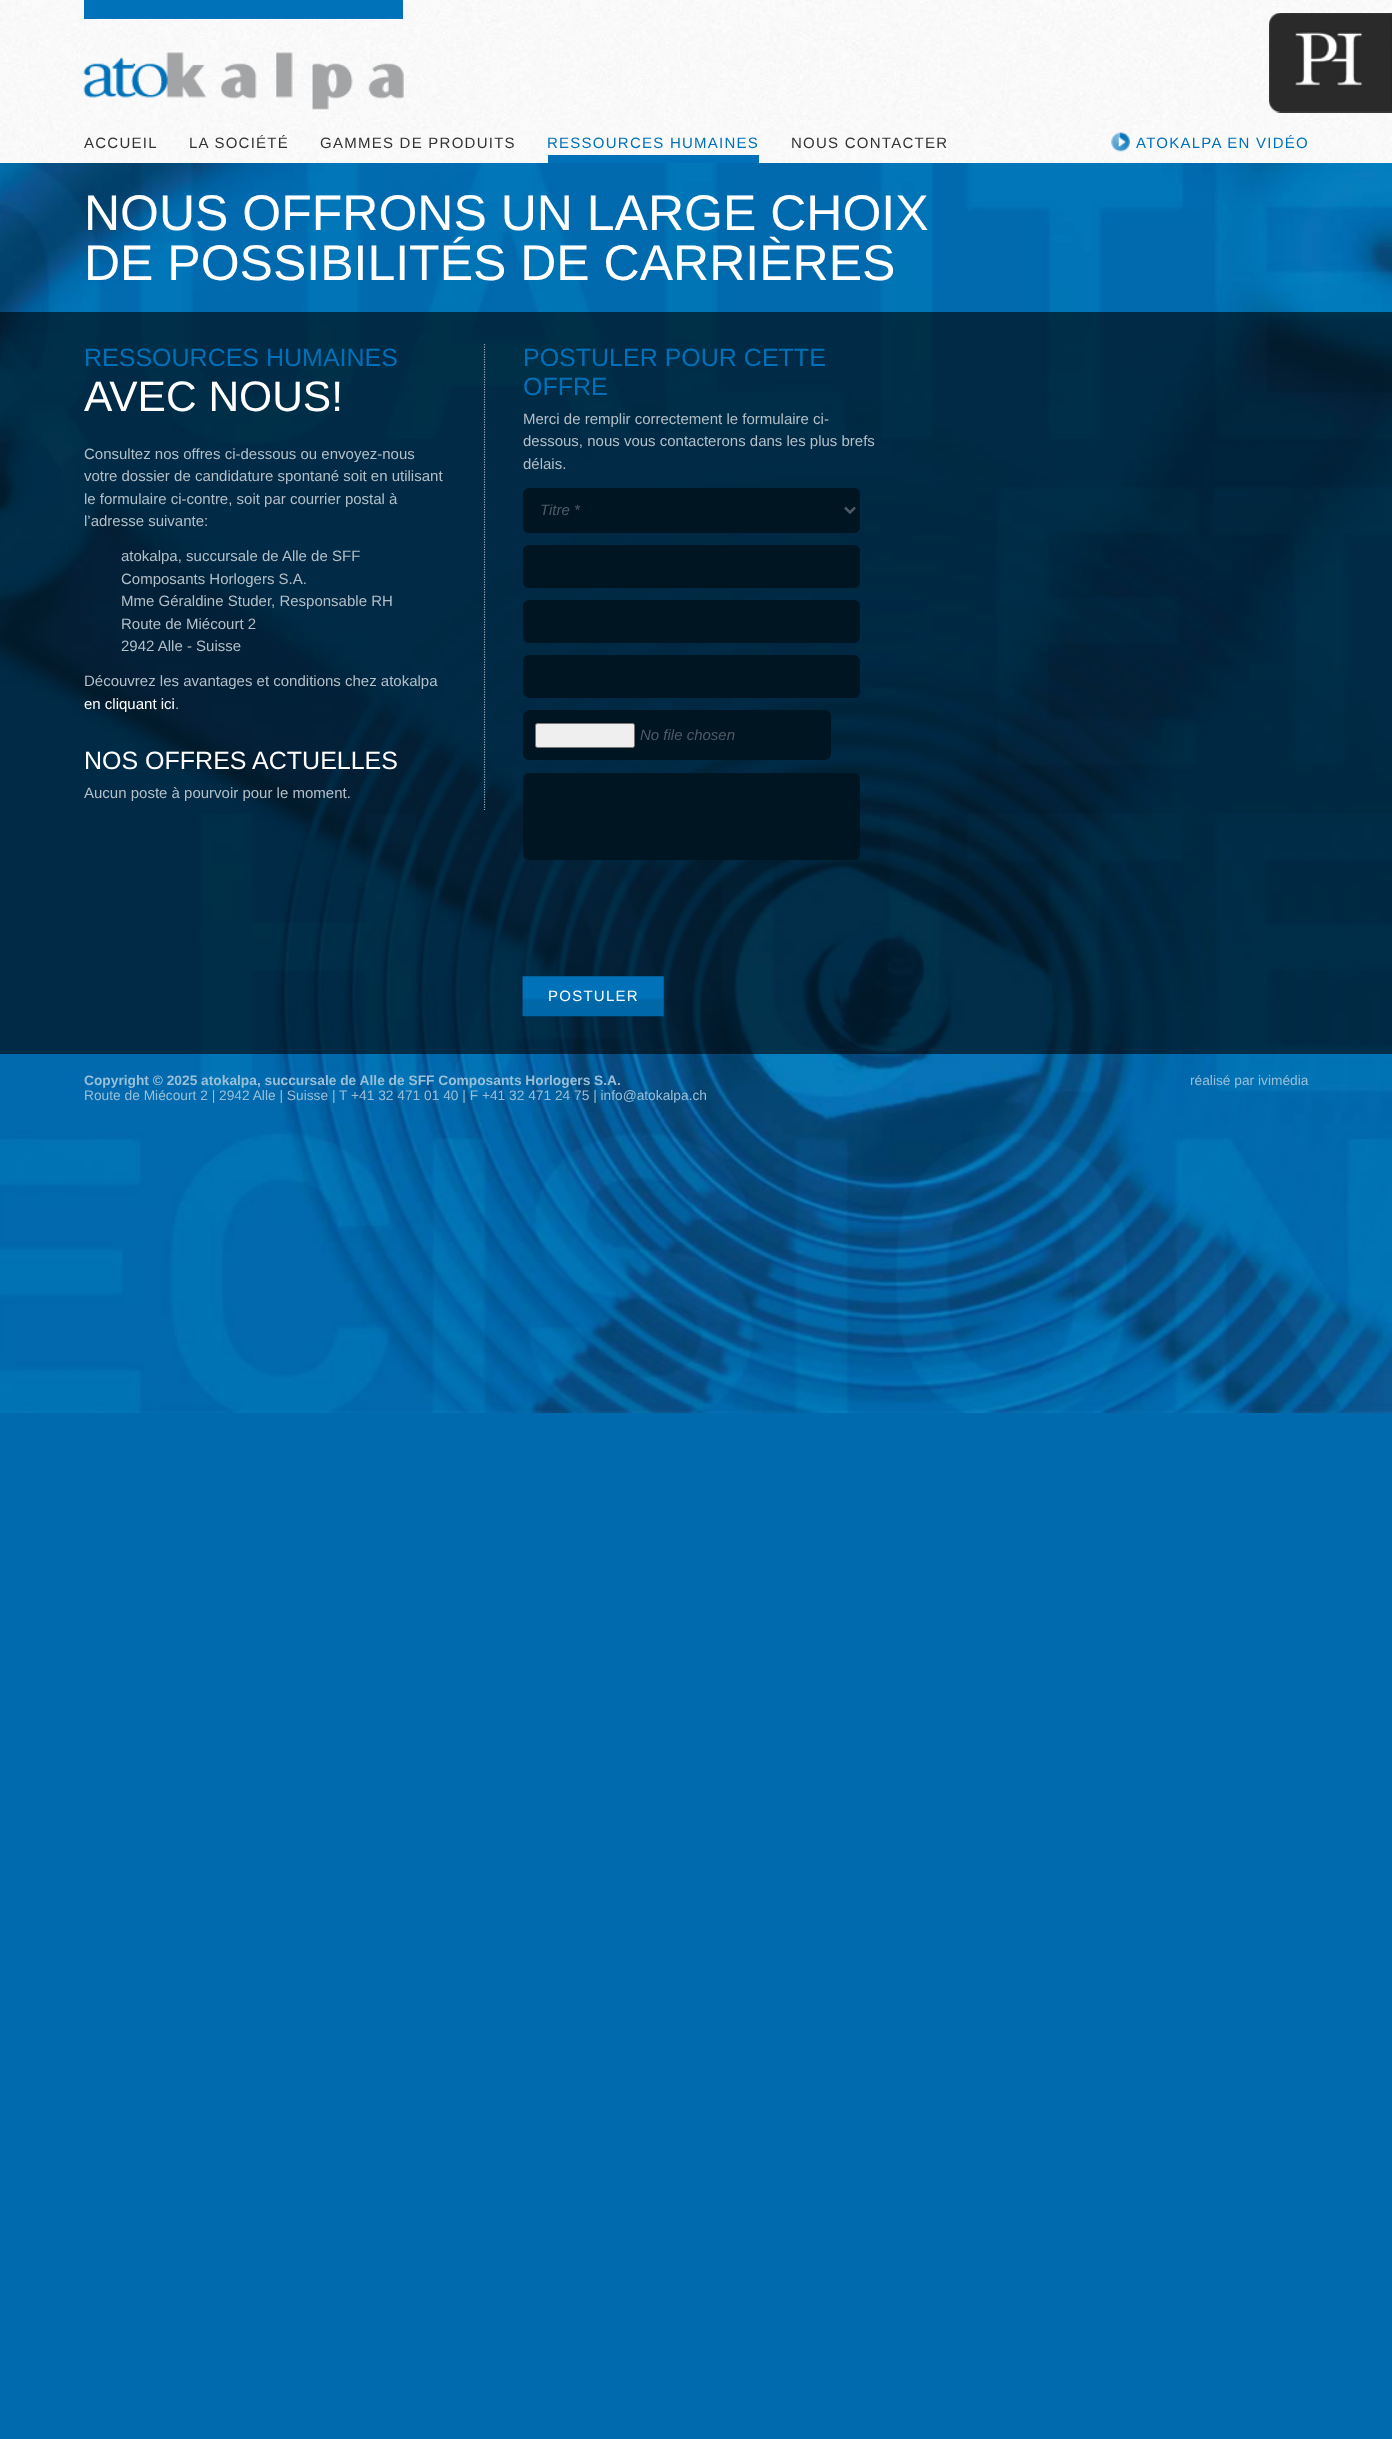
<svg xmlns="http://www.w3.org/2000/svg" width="1392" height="2439">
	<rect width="100%" height="100%" fill="#006AAE" />
	<image x="0" y="0" width="1392" height="163" href="assets/img1.png" />
	<image x="1269" y="13" width="123" height="100" href="assets/img2.png" />
	<rect x="84" y="0" width="319" height="19" fill="#0072B9" />
	<image x="83" y="52" width="321" height="58" href="assets/img3.png" />
	<g font-family="Liberation Sans" font-size="15" letter-spacing="1.25" fill="#333333">
		<text x="84" y="148">ACCUEIL</text>
		<text x="189" y="148">LA SOCIÉTÉ</text>
		<text x="320" y="148">GAMMES DE PRODUITS</text>
	</g>
	<rect x="548" y="155" width="211" height="8" fill="#0071B9" />
	<text x="547" y="148" font-family="Liberation Sans" font-size="15" letter-spacing="1.25" fill="#0071B9">RESSOURCES HUMAINES</text>
	<text x="791" y="148" font-family="Liberation Sans" font-size="15" letter-spacing="1.25" fill="#333333">NOUS CONTACTER</text>
	<image x="1111" y="132" width="19" height="20" href="assets/img4.png" />
	<text x="1136" y="148" font-family="Liberation Sans" font-size="15" letter-spacing="1.25" fill="#0071B9">ATOKALPA EN VIDÉO</text>
	<image x="0" y="163" width="1392" height="1250" href="assets/img5.png" />
	<g font-family="Liberation Sans" font-size="50" fill="#FFFFFF">
		<text x="84" y="230">NOUS OFFRONS UN LARGE CHOIX</text>
		<text x="84" y="280">DE POSSIBILITÉS DE CARRIÈRES</text>
	</g>
	<rect x="0" y="312" width="1392" height="742" fill="#000000" fill-opacity="0.6" />
	<path d="M484.5 344V810" fill="none" stroke="#99AAB5" stroke-width="1.2" stroke-dasharray="1.25 1.25" />
	<text x="84" y="366" font-family="Liberation Sans" font-size="25" fill="#0071B9">RESSOURCES HUMAINES</text>
	<text x="84" y="411" font-family="Liberation Sans" font-size="42.5" fill="#FFFFFF">AVEC NOUS!</text>
	<g font-family="Liberation Sans" font-size="15" fill="#B3BFC7">
		<text x="84" y="459">Consultez nos offres ci-dessous ou envoyez-nous</text>
		<text x="84" y="481">votre dossier de candidature spontané soit en utilisant</text>
		<text x="84" y="504">le formulaire ci-contre, soit par courrier postal à</text>
		<text x="84" y="526">l’adresse suivante:</text>
		<text x="121" y="561">atokalpa, succursale de Alle de SFF</text>
		<text x="121" y="584">Composants Horlogers S.A.</text>
		<text x="121" y="606">Mme Géraldine Studer, Responsable RH</text>
		<text x="121" y="629">Route de Miécourt 2</text>
		<text x="121" y="651">2942 Alle - Suisse</text>
		<text x="84" y="686">Découvrez les avantages et conditions chez atokalpa</text>
	</g>
	<text x="84" y="709" font-family="Liberation Sans" font-size="15" fill="#FFFFFF">en cliquant ici</text>
	<text x="175" y="709" font-family="Liberation Sans" font-size="15" fill="#B3BFC7">.</text>
	<text x="84" y="769" font-family="Liberation Sans" font-size="25" fill="#FFFFFF">NOS OFFRES ACTUELLES</text>
	<text x="84" y="798" font-family="Liberation Sans" font-size="15" fill="#B3BFC7">Aucun poste à pourvoir pour le moment.</text>
	<g font-family="Liberation Sans" font-size="25" fill="#0071B9">
		<text x="523" y="366">POSTULER POUR CETTE</text>
		<text x="523" y="395">OFFRE</text>
	</g>
	<g font-family="Liberation Sans" font-size="15" fill="#B3BFC7">
		<text x="523" y="424">Merci de remplir correctement le formulaire ci-</text>
		<text x="523" y="446">dessous, nous vous contacterons dans les plus brefs</text>
		<text x="523" y="469">délais.</text>
	</g>
	<rect x="523" y="488" width="337" height="45" rx="6" fill="#001522" />
	<path d="M845 507.5L850 512.5L855 507.5" fill="none" stroke="#4D5B65" stroke-width="2.5" />
	<text x="540" y="515" font-family="Liberation Sans" font-size="15" font-style="italic" fill="#4D5B65">Titre *</text>
	<rect x="523" y="545" width="337" height="43" rx="6" fill="#001522" />
	<rect x="523" y="600" width="337" height="43" rx="6" fill="#001522" />
	<rect x="523" y="655" width="337" height="43" rx="6" fill="#001522" />
	<rect x="523" y="710" width="308" height="50" rx="6" fill="#001522" />
	<rect x="535.5" y="723.5" width="99" height="24" rx="2" fill="#EFEFEF" stroke="#767676" />
	<text x="640" y="740" font-family="Liberation Sans" font-size="15" font-style="italic" fill="#4D5B65">No file chosen</text>
	<rect x="523" y="773" width="337" height="87" rx="6" fill="#001522" />
	<image x="522" y="976" width="142" height="41" href="assets/img6.png" />
	<text x="548" y="1001" font-family="Liberation Sans" font-size="15" letter-spacing="1.25" fill="#FFFFFF">POSTULER</text>
	<text x="84" y="1085" font-family="Liberation Sans" font-size="13.75" font-weight="700" fill="#99BFD8">Copyright © 2025 atokalpa, succursale de Alle de SFF Composants Horlogers S.A.</text>
	<g font-family="Liberation Sans" font-size="13.75" fill="#99BFD8">
		<text x="84" y="1100">Route de Miécourt 2 | 2942 Alle | Suisse | T +41 32 471 01 40 | F +41 32 471 24 75 | info@atokalpa.ch</text>
		<text x="1190" y="1085">réalisé par ivimédia</text>
	</g>
</svg>
